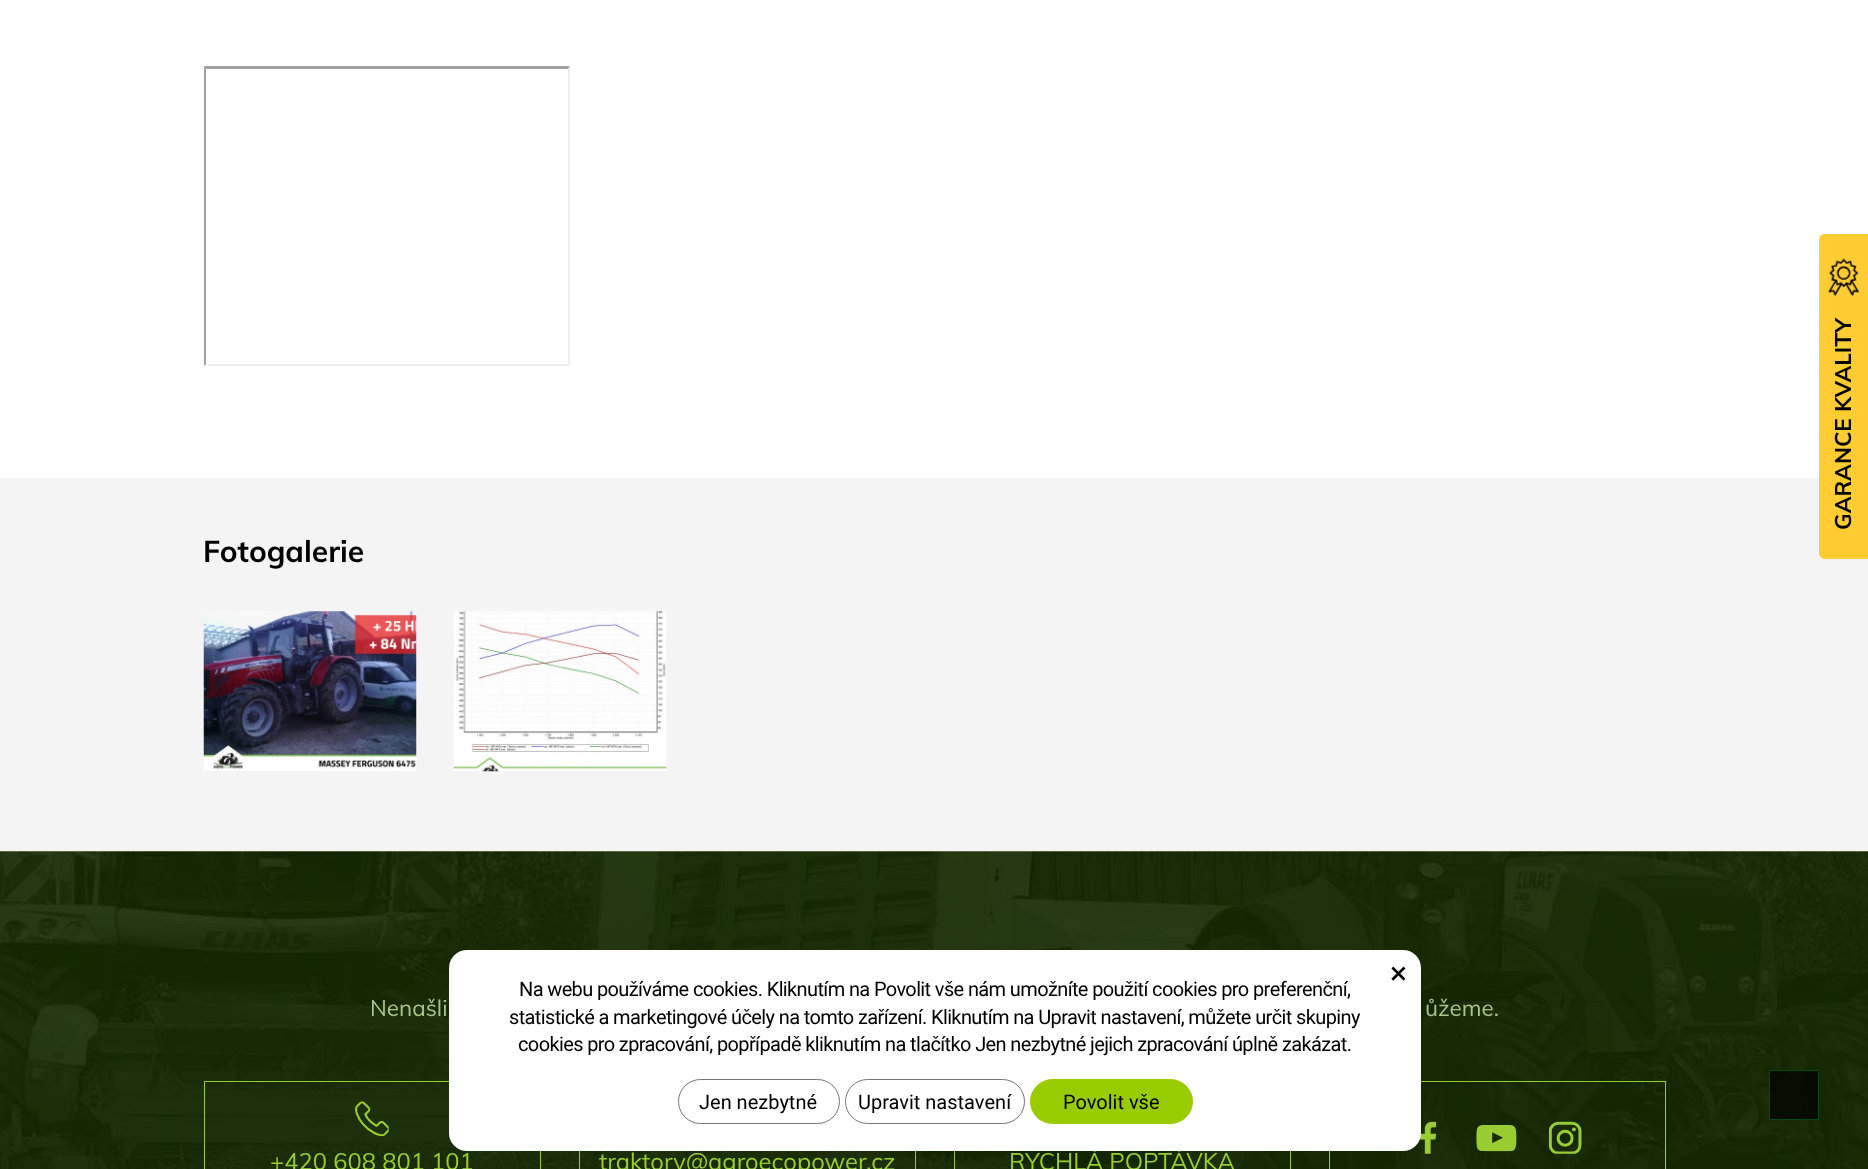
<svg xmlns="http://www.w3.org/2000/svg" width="1868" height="1169">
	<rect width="100%" height="100%" fill="#F4F4F4" />
	<rect x="0" y="0" width="1868" height="478" fill="#FFFFFF" />
	<path d="M1825 234H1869V559H1825C1821.5 559 1819 556.5 1819 553V240C1819 236.5 1821.5 234 1825 234Z" fill="#FFCC33" />
	<image x="1828" y="258" width="31" height="38" href="assets/img1.png" />
	<text x="1851" y="530" transform="rotate(-90 1851 530)" font-family="Muli" font-size="22.5" font-weight="700" fill="#000000">GARANCE KVALITY</text>
	<path d="M204 66H570L568 69H206Z" fill="#9F9F9F" />
	<path d="M570 66V366L568 364V69Z" fill="#EEEEEE" />
	<path d="M570 366H204L206 364H568Z" fill="#EEEEEE" />
	<path d="M204 366V66L206 69V364Z" fill="#9F9F9F" />
	<text x="203" y="562" font-family="Muli" font-size="30" font-weight="700" fill="#000000">Fotogalerie</text>
	<image x="203" y="611" width="214" height="160" href="assets/img2.png" />
	<image x="453" y="611" width="214" height="161" href="assets/img3.png" />
	<image x="0" y="851" width="1868" height="318" href="assets/img4.png" />
	<rect x="204.5" y="1081.5" width="336" height="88" fill="none" stroke="#99CC33" />
	<rect x="579.5" y="1081.5" width="336" height="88" fill="none" stroke="#99CC33" />
	<rect x="954.5" y="1081.5" width="336" height="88" fill="none" stroke="#99CC33" />
	<text x="1009" y="1170" font-family="Muli" font-size="23.75" fill="#99CC33">RYCHLÁ POPTÁVKA</text>
	<rect x="1329.5" y="1081.5" width="336" height="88" fill="none" stroke="#99CC33" />
	<image x="1420" y="1121" width="17" height="33" href="assets/img6.png" />
	<rect x="449" y="950" width="972" height="201" rx="18" fill="#FFFFFF" />
	<text x="1390" y="984" font-family="Roboto" font-size="32" fill="#000000">×</text>
	<g font-family="Roboto" font-size="20" letter-spacing="-0.62" fill="#000000">
		<text x="519" y="996">Na webu používáme cookies. Kliknutím na Povolit vše nám umožníte použití cookies pro preferenční,</text>
		<text x="509" y="1024">statistické a marketingové účely na tomto zařízení. Kliknutím na Upravit nastavení, můžete určit skupiny</text>
		<text x="518" y="1051">cookies pro zpracování, popřípadě kliknutím na tlačítko Jen nezbytné jejich zpracování úplně zakázat.</text>
	</g>
	<rect x="678.5" y="1079.5" width="161" height="44" rx="22" fill="none" stroke="#767676" />
	<text x="699" y="1109" font-family="Roboto" font-size="20" fill="#000000">Jen nezbytné</text>
	<rect x="845.5" y="1079.5" width="179" height="44" rx="22" fill="none" stroke="#767676" />
	<text x="858" y="1109" font-family="Roboto" font-size="20" fill="#000000">Upravit nastavení</text>
	<rect x="1030.5" y="1079.5" width="162" height="44" rx="22" fill="#99CC00" stroke="#99CC00" />
	<text x="1063" y="1109" font-family="Roboto" font-size="20" fill="#000000">Povolit vše</text>
	<g font-family="Muli" font-size="22.5" fill="#A7C48A">
		<text x="370" y="1016">Nenašli</text>
		<text x="1425" y="1016">ůžeme.</text>
	</g>
	<image x="355" y="1101" width="34" height="36" href="assets/img5.png" />
	<g font-family="Muli" font-size="23.75" fill="#99CC33">
		<text x="270" y="1170">+420 608 801 101</text>
		<text x="599" y="1170">traktory@agroecopower.cz</text>
	</g>
	<image x="1476" y="1125" width="41" height="27" href="assets/img7.png" />
	<image x="1548" y="1121" width="34" height="33" href="assets/img8.png" />
	<rect x="1769" y="1070" width="50" height="50" fill="#000000" fill-opacity="0.7" />
	<rect x="1769.5" y="1070.5" width="49" height="49" fill="none" stroke="#006622" stroke-opacity="0.7" />
</svg>
